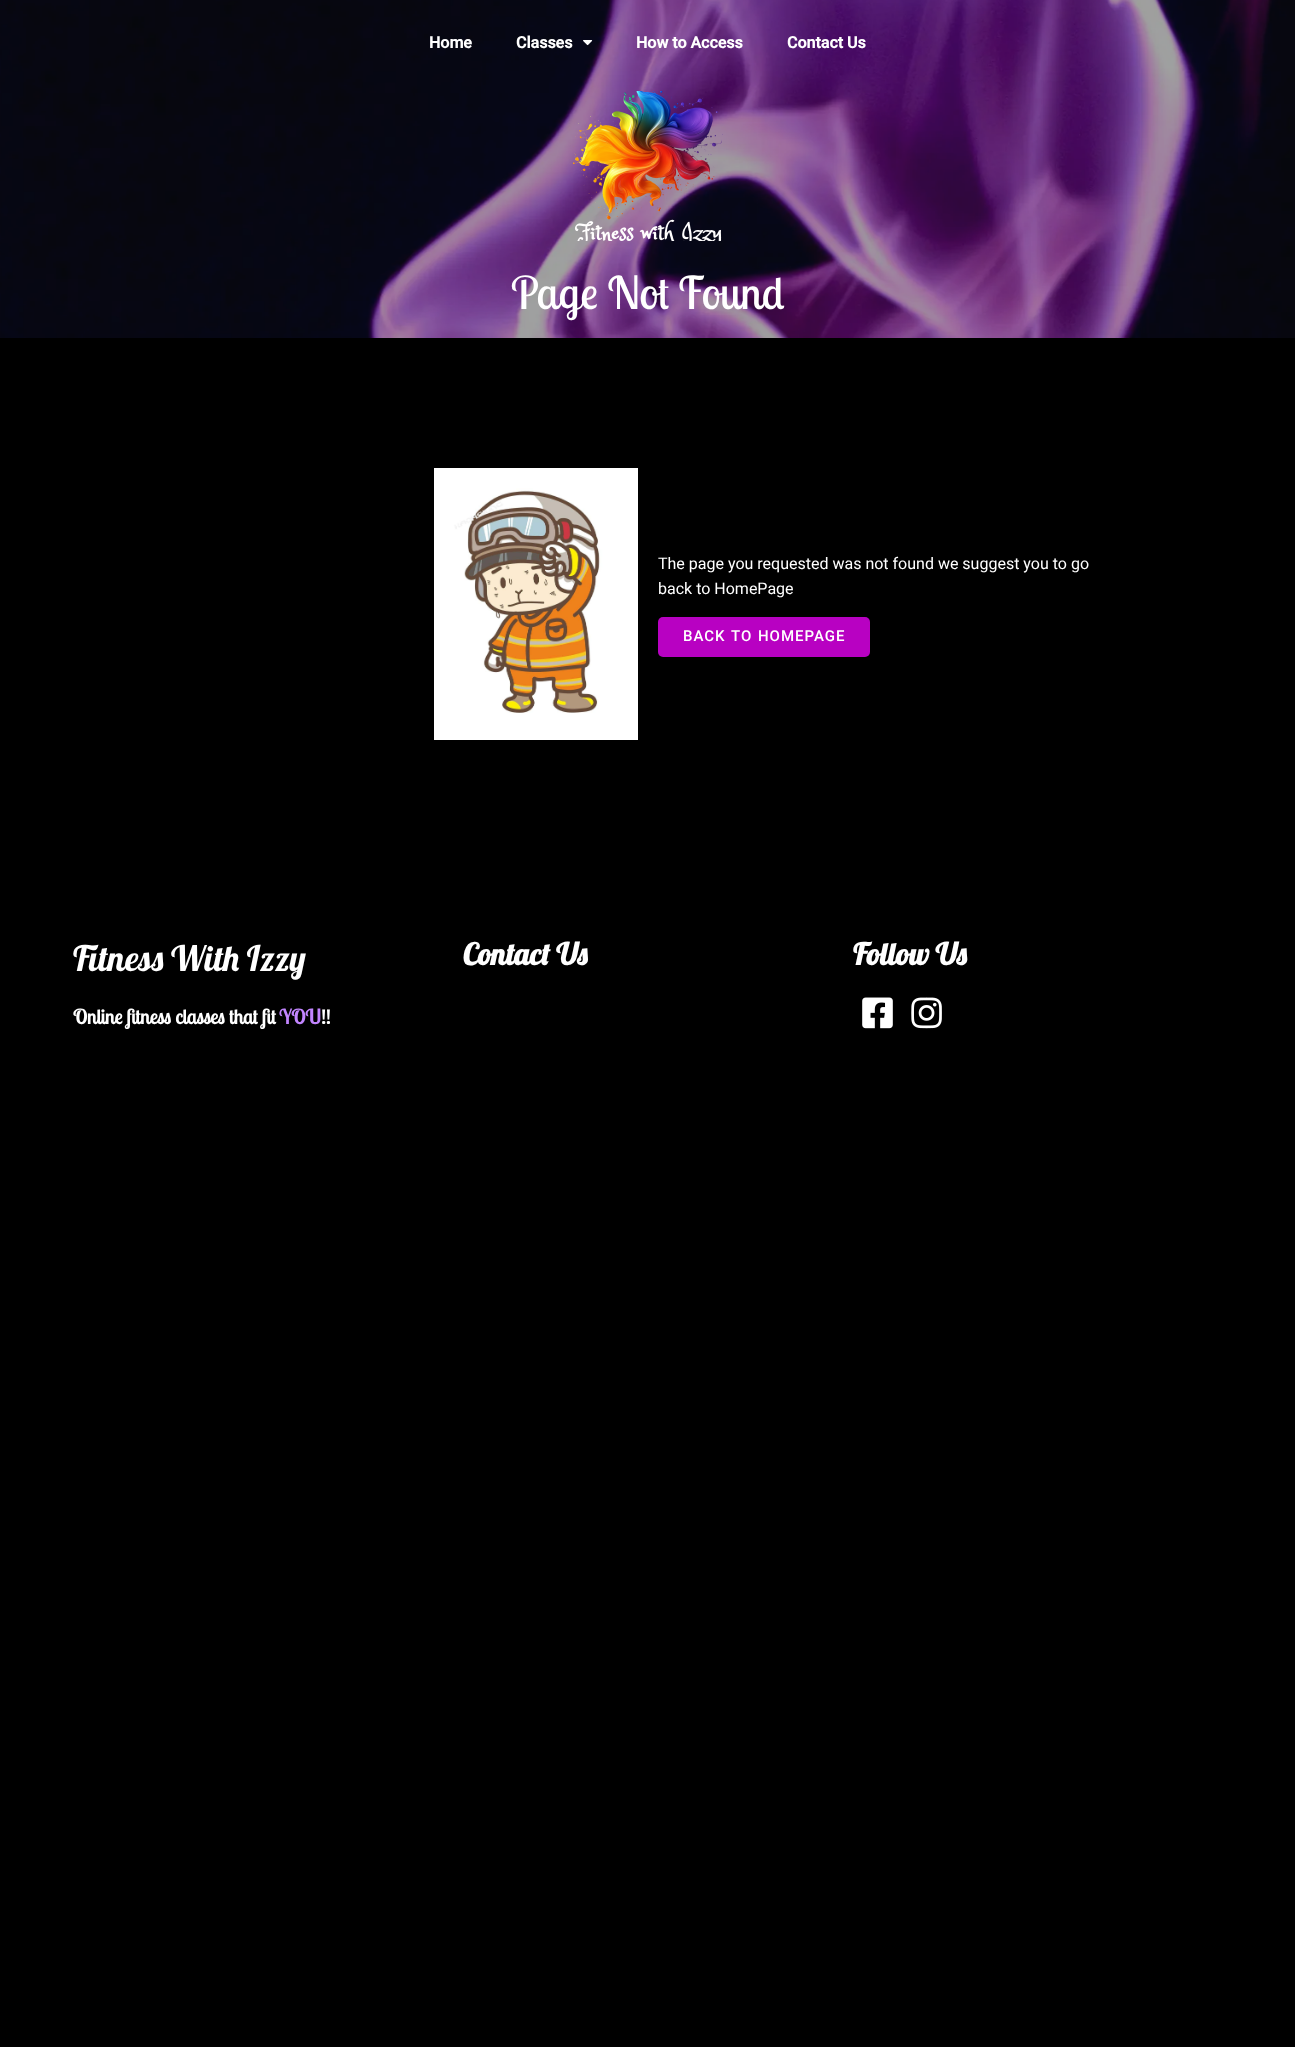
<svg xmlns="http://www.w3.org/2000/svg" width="1295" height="2047">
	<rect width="100%" height="100%" fill="#000000" />
	<image x="0" y="0" width="1295" height="338" href="assets/img1.png" />
	<g font-family="Roboto" font-size="16" font-weight="700" fill="#FFFFFF">
		<text x="429" y="48">Home</text>
		<text x="516" y="48">Classes</text>
	</g>
	<image x="583" y="40" width="10" height="6" href="assets/img2.png" />
	<g font-family="Roboto" font-size="16" font-weight="700" fill="#FFFFFF">
		<text x="636" y="48">How to Access</text>
		<text x="787" y="48">Contact Us</text>
	</g>
	<image x="573" y="91" width="150" height="150" href="assets/img3.png" />
	<text x="511" y="309" font-family="Lobster Two" font-size="45" fill="#FFFFFF">Page Not Found</text>
	<image x="434" y="468" width="204" height="272" href="assets/img4.png" />
	<g font-family="Roboto" font-size="16" fill="#FFFFFF">
		<text x="658" y="569">The page you requested was not found we suggest you to go</text>
		<text x="658" y="594">back to HomePage</text>
	</g>
	<rect x="658" y="617" width="212" height="40" rx="5" fill="#B801C2" />
	<text x="683" y="641" word-spacing="1" font-family="Roboto" font-size="15" font-weight="500" letter-spacing="1" fill="#FFFFFF">BACK TO HOMEPAGE</text>
	<text x="73" y="971" font-family="Lobster" font-size="35" fill="#FFFFFF">Fitness With Izzy</text>
	<text x="73" y="1024" font-family="Lobster Two" font-size="20" font-weight="700" fill="#FFFFFF">Online fitness classes that fit</text>
	<text x="279" y="1024" font-family="Lobster Two" font-size="20" font-weight="700" fill="#C285FF">YOU</text>
	<text x="321" y="1024" font-family="Lobster Two" font-size="20" font-weight="700" fill="#FFFFFF">!!</text>
	<g font-family="Lobster" font-size="30" font-weight="700" fill="#FFFFFF">
		<text x="463" y="965">Contact Us</text>
		<text x="853" y="965">Follow Us</text>
	</g>
	<image x="862" y="997" width="31" height="32" href="assets/img5.png" />
	<image x="911" y="997" width="31" height="32" href="assets/img6.png" />
</svg>
